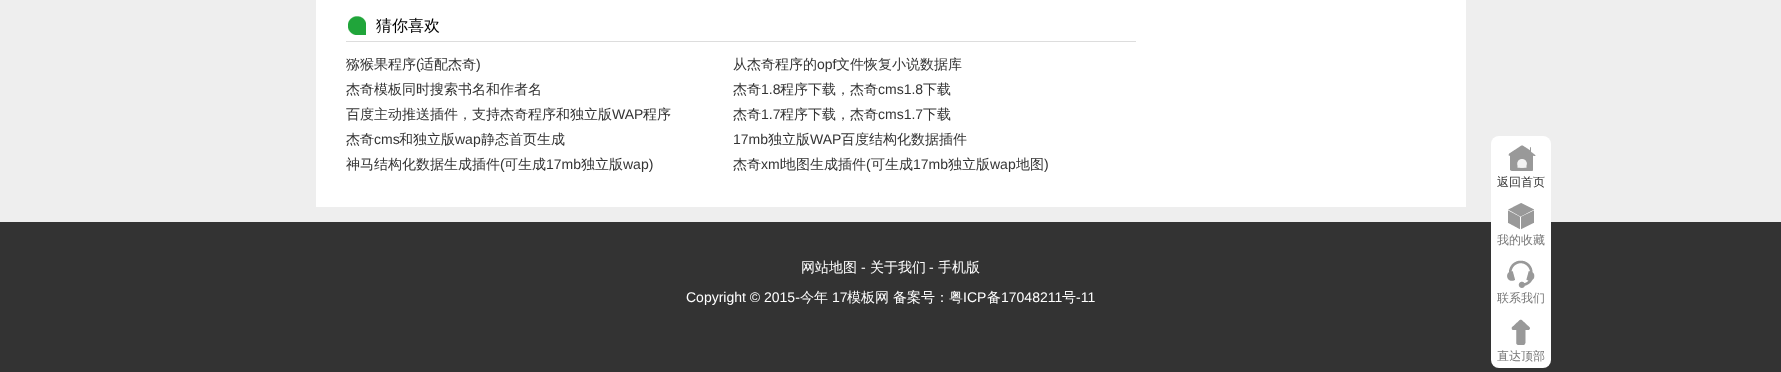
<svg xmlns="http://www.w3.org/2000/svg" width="1781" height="372">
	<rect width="100%" height="100%" fill="#EEEEEE" />
	<rect x="316" y="0" width="1150" height="207" fill="#FFFFFF" />
	<rect x="346" y="41" width="790" height="1" fill="#DDDDDD" />
	<image x="348" y="16" width="18" height="19" href="assets/img1.png" />
	<text x="376" y="31" font-family="WenQuanYi Zen Hei" font-size="16" font-weight="500" fill="#000000">猜你喜欢</text>
	<text x="346" y="69" font-family="WenQuanYi Zen Hei" font-size="14" font-weight="500" fill="#333333">猕猴果程序</text>
	<text x="416" y="69" font-family="Liberation Sans" font-size="14" fill="#333333">(</text>
	<text x="420" y="69" font-family="WenQuanYi Zen Hei" font-size="14" font-weight="500" fill="#333333">适配杰奇</text>
	<text x="476" y="69" font-family="Liberation Sans" font-size="14" fill="#333333">)</text>
	<text x="733" y="69" font-family="WenQuanYi Zen Hei" font-size="14" font-weight="500" fill="#333333">从杰奇程序的</text>
	<text x="817" y="69" font-family="Liberation Sans" font-size="14" fill="#333333">opf</text>
	<g font-family="WenQuanYi Zen Hei" font-size="14" font-weight="500" fill="#333333">
		<text x="836" y="69">文件恢复小说数据库</text>
		<text x="346" y="94">杰奇模板同时搜索书名和作者名</text>
		<text x="733" y="94">杰奇</text>
	</g>
	<text x="761" y="94" font-family="Liberation Sans" font-size="14" fill="#333333">1.8</text>
	<text x="780" y="94" font-family="WenQuanYi Zen Hei" font-size="14" font-weight="500" fill="#333333">程序下载，杰奇</text>
	<text x="878" y="94" font-family="Liberation Sans" font-size="14" fill="#333333">cms1.8</text>
	<g font-family="WenQuanYi Zen Hei" font-size="14" font-weight="500" fill="#333333">
		<text x="923" y="94">下载</text>
		<text x="346" y="119">百度主动推送插件，支持杰奇程序和独立版</text>
	</g>
	<text x="612" y="119" font-family="Liberation Sans" font-size="14" fill="#333333">WAP</text>
	<g font-family="WenQuanYi Zen Hei" font-size="14" font-weight="500" fill="#333333">
		<text x="643" y="119">程序</text>
		<text x="733" y="119">杰奇</text>
	</g>
	<text x="761" y="119" font-family="Liberation Sans" font-size="14" fill="#333333">1.7</text>
	<text x="780" y="119" font-family="WenQuanYi Zen Hei" font-size="14" font-weight="500" fill="#333333">程序下载，杰奇</text>
	<text x="878" y="119" font-family="Liberation Sans" font-size="14" fill="#333333">cms1.7</text>
	<g font-family="WenQuanYi Zen Hei" font-size="14" font-weight="500" fill="#333333">
		<text x="923" y="119">下载</text>
		<text x="346" y="144">杰奇</text>
	</g>
	<text x="374" y="144" font-family="Liberation Sans" font-size="14" fill="#333333">cms</text>
	<text x="399" y="144" font-family="WenQuanYi Zen Hei" font-size="14" font-weight="500" fill="#333333">和独立版</text>
	<text x="455" y="144" font-family="Liberation Sans" font-size="14" fill="#333333">wap</text>
	<text x="481" y="144" font-family="WenQuanYi Zen Hei" font-size="14" font-weight="500" fill="#333333">静态首页生成</text>
	<text x="733" y="144" font-family="Liberation Sans" font-size="14" fill="#333333">17mb</text>
	<text x="768" y="144" font-family="WenQuanYi Zen Hei" font-size="14" font-weight="500" fill="#333333">独立版</text>
	<text x="810" y="144" font-family="Liberation Sans" font-size="14" fill="#333333">WAP</text>
	<g font-family="WenQuanYi Zen Hei" font-size="14" font-weight="500" fill="#333333">
		<text x="841" y="144">百度结构化数据插件</text>
		<text x="346" y="169">神马结构化数据生成插件</text>
	</g>
	<text x="500" y="169" font-family="Liberation Sans" font-size="14" fill="#333333">(</text>
	<text x="504" y="169" font-family="WenQuanYi Zen Hei" font-size="14" font-weight="500" fill="#333333">可生成</text>
	<text x="546" y="169" font-family="Liberation Sans" font-size="14" fill="#333333">17mb</text>
	<text x="581" y="169" font-family="WenQuanYi Zen Hei" font-size="14" font-weight="500" fill="#333333">独立版</text>
	<text x="623" y="169" font-family="Liberation Sans" font-size="14" fill="#333333">wap)</text>
	<text x="733" y="169" font-family="WenQuanYi Zen Hei" font-size="14" font-weight="500" fill="#333333">杰奇</text>
	<text x="761" y="169" font-family="Liberation Sans" font-size="14" fill="#333333">xml</text>
	<text x="782" y="169" font-family="WenQuanYi Zen Hei" font-size="14" font-weight="500" fill="#333333">地图生成插件</text>
	<text x="866" y="169" font-family="Liberation Sans" font-size="14" fill="#333333">(</text>
	<text x="871" y="169" font-family="WenQuanYi Zen Hei" font-size="14" font-weight="500" fill="#333333">可生成</text>
	<text x="913" y="169" font-family="Liberation Sans" font-size="14" fill="#333333">17mb</text>
	<text x="948" y="169" font-family="WenQuanYi Zen Hei" font-size="14" font-weight="500" fill="#333333">独立版</text>
	<text x="990" y="169" font-family="Liberation Sans" font-size="14" fill="#333333">wap</text>
	<text x="1016" y="169" font-family="WenQuanYi Zen Hei" font-size="14" font-weight="500" fill="#333333">地图</text>
	<text x="1044" y="169" font-family="Liberation Sans" font-size="14" fill="#333333">)</text>
	<rect x="0" y="222" width="1781" height="150" fill="#333333" />
	<text x="801" y="272" font-family="WenQuanYi Zen Hei" font-size="14" font-weight="500" fill="#FFFFFF">网站地图</text>
	<text x="861" y="272" font-family="Liberation Sans" font-size="14" fill="#FFFFFF">-</text>
	<text x="870" y="272" font-family="WenQuanYi Zen Hei" font-size="14" font-weight="500" fill="#FFFFFF">关于我们</text>
	<text x="929" y="272" font-family="Liberation Sans" font-size="14" fill="#FFFFFF">-</text>
	<text x="938" y="272" font-family="WenQuanYi Zen Hei" font-size="14" font-weight="500" fill="#FFFFFF">手机版</text>
	<text x="686" y="302" font-family="Liberation Sans" font-size="14" fill="#FFFFFF">Copyright © 2015-</text>
	<text x="800" y="302" font-family="WenQuanYi Zen Hei" font-size="14" font-weight="500" fill="#FFFFFF">今年</text>
	<text x="832" y="302" font-family="Liberation Sans" font-size="14" fill="#FFFFFF">17</text>
	<g font-family="WenQuanYi Zen Hei" font-size="14" font-weight="500" fill="#FFFFFF">
		<text x="847" y="302">模板网</text>
		<text x="893" y="302">备案号：粤</text>
	</g>
	<text x="963" y="302" font-family="Liberation Sans" font-size="14" fill="#FFFFFF">ICP</text>
	<text x="987" y="302" font-family="WenQuanYi Zen Hei" font-size="14" font-weight="500" fill="#FFFFFF">备</text>
	<text x="1001" y="302" font-family="Liberation Sans" font-size="14" fill="#FFFFFF">17048211</text>
	<text x="1062" y="302" font-family="WenQuanYi Zen Hei" font-size="14" font-weight="500" fill="#FFFFFF">号</text>
	<text x="1076" y="302" font-family="Liberation Sans" font-size="14" fill="#FFFFFF">-11</text>
	<rect x="1491" y="136" width="60" height="232" rx="8" fill="#FFFFFF" />
	<image x="1508" y="145" width="28" height="26" href="assets/img2.png" />
	<text x="1497" y="186" font-family="WenQuanYi Zen Hei" font-size="12" font-weight="500" fill="#333333">返回首页</text>
	<image x="1508" y="203" width="26" height="27" href="assets/img3.png" />
	<text x="1497" y="244" font-family="WenQuanYi Zen Hei" font-size="12" font-weight="500" fill="#777777">我的收藏</text>
	<image x="1507" y="260" width="28" height="28" href="assets/img4.png" />
	<text x="1497" y="302" font-family="WenQuanYi Zen Hei" font-size="12" font-weight="500" fill="#777777">联系我们</text>
	<image x="1511" y="319" width="19" height="26" href="assets/img5.png" />
	<text x="1497" y="360" font-family="WenQuanYi Zen Hei" font-size="12" font-weight="500" fill="#777777">直达顶部</text>
</svg>
